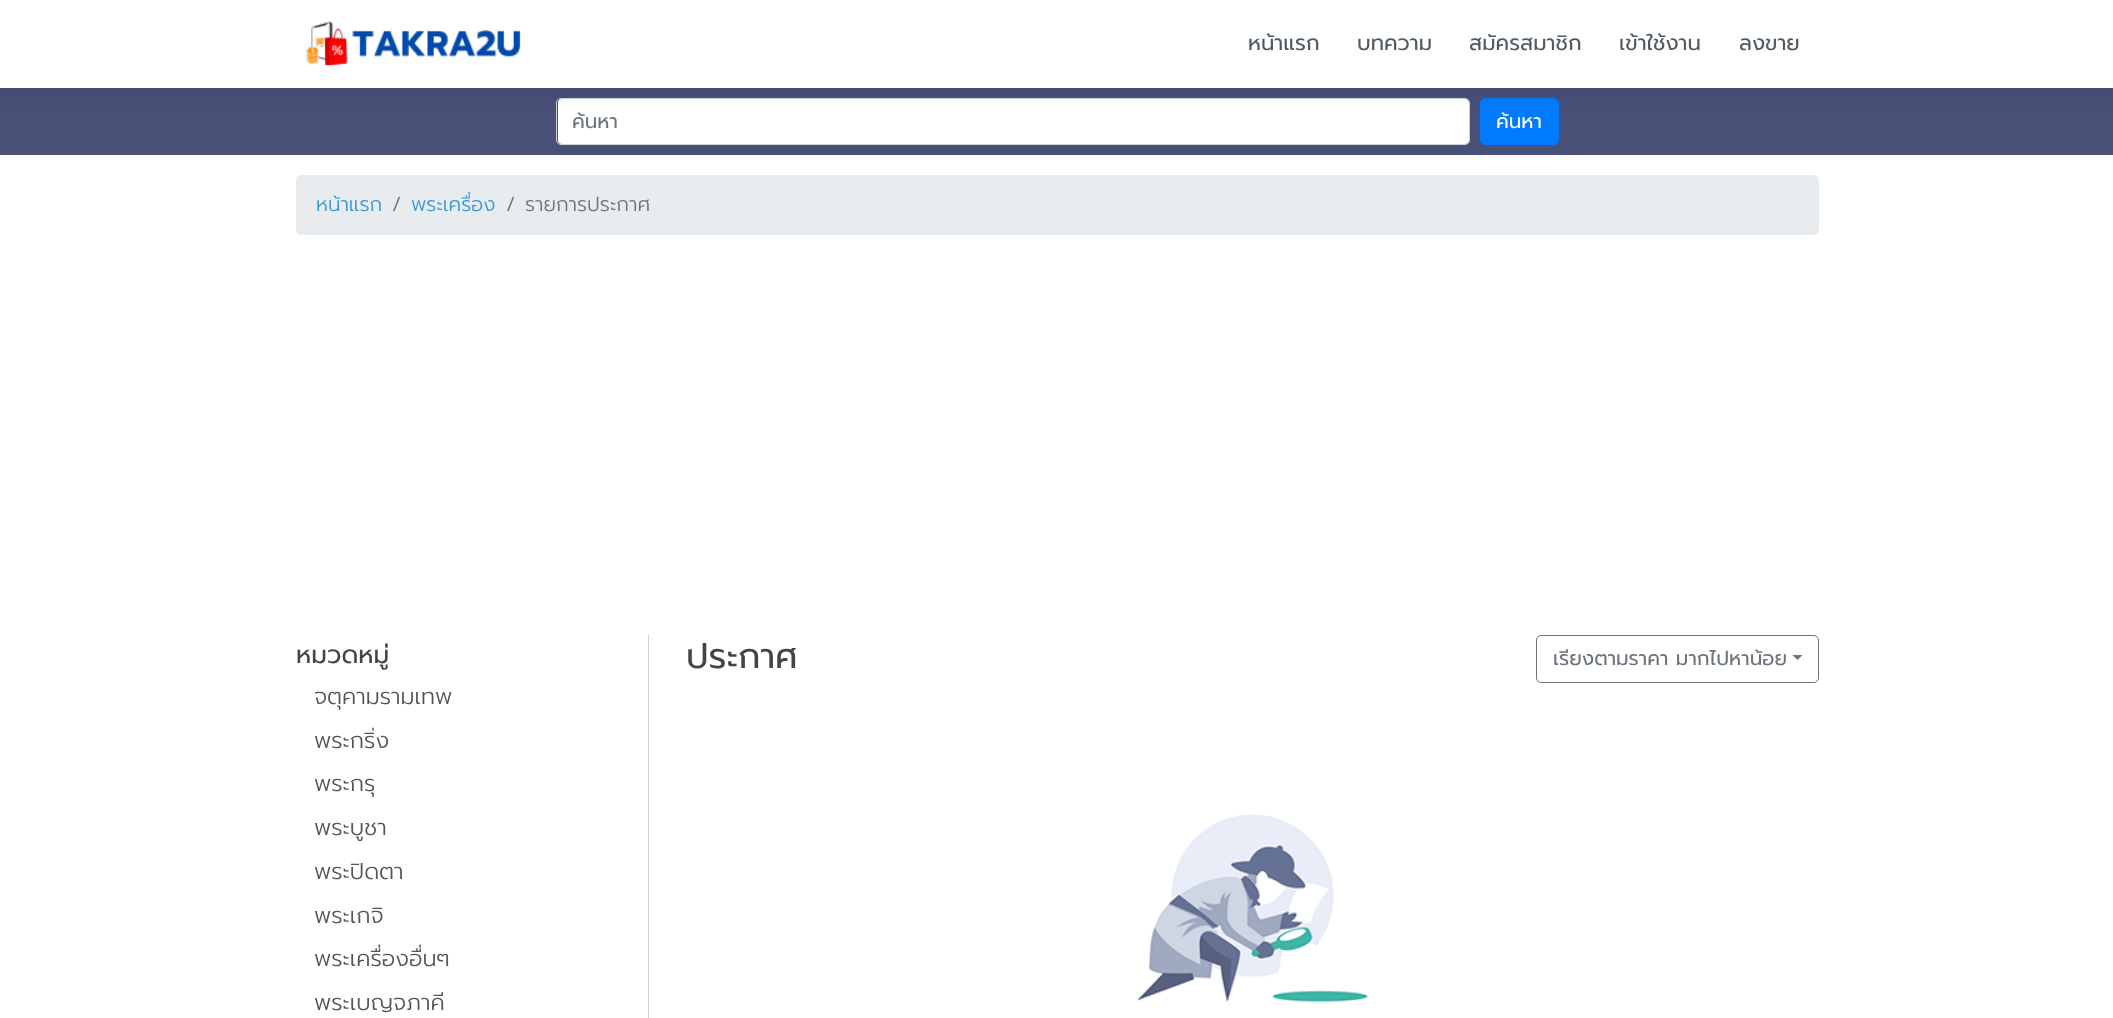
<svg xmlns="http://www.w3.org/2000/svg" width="2113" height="1018">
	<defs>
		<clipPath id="clip1"><rect x="573" y="106" width="862" height="30" /></clipPath>
	</defs>
	<rect width="100%" height="100%" fill="#FFFFFF" />
	<rect x="0" y="88" width="2113" height="67" fill="#485078" />
	<rect x="558" y="99" width="911" height="45" rx="4" fill="#FFFFFF" />
	<rect x="556.5" y="98.5" width="913" height="46" rx="4.5" fill="none" stroke="#CED4DA" />
	<rect x="1480.5" y="98.5" width="78" height="46" rx="4.5" fill="#007BFF" stroke="#007BFF" />
	<rect x="0" y="3" width="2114" height="87" fill="#000000" fill-opacity="0.1" filter="blur(9.5px)" />
	<rect x="0" y="0" width="2113" height="88" fill="#FFFFFF" />
	<image x="306" y="21" width="215" height="46" href="assets/img1.png" />
	<g font-family="Prompt" font-size="21.25" fill="#4F5A62">
		<text x="1248" y="50">หน้าแรก</text>
		<text x="1357" y="50">บทความ</text>
		<text x="1469" y="50">สมัครสมาชิก</text>
		<text x="1619" y="50">เข้าใช้งาน</text>
		<text x="1739" y="50">ลงขาย</text>
	</g>
	<g clip-path="url(#clip1)">
		<text x="572" y="128" font-family="Prompt" font-size="20" fill="#6C757D">ค้นหา</text>
	</g>
	<text x="1496" y="128" font-family="Prompt" font-size="20" fill="#FFFFFF">ค้นหา</text>
	<rect x="296" y="175" width="1523" height="60" rx="5" fill="#E9ECEF" />
	<text x="316" y="211" font-family="Prompt" font-size="20" font-weight="300" fill="#3498DB">หน้าแรก</text>
	<text x="392" y="211" font-family="Prompt" font-size="20" font-weight="300" fill="#6C757D">/</text>
	<text x="411" y="211" font-family="Prompt" font-size="20" font-weight="300" fill="#3498DB">พระเครื่อง</text>
	<g font-family="Prompt" font-size="20" font-weight="300" fill="#6C757D">
		<text x="506" y="211">/</text>
		<text x="525" y="211">รายการประกาศ</text>
	</g>
	<rect x="648" y="635" width="1" height="383" fill="#D1D1D1" />
	<text x="296" y="663" font-family="Prompt" font-size="25" fill="#444444">หมวดหมู่</text>
	<g font-family="Prompt" font-size="22.5" font-weight="300" fill="#555555">
		<text x="314" y="704">จตุคามรามเทพ</text>
		<text x="314" y="748">พระกริ่ง</text>
		<text x="314" y="791">พระกรุ</text>
		<text x="314" y="835">พระบูชา</text>
		<text x="314" y="879">พระปิดตา</text>
		<text x="314" y="923">พระเกจิ</text>
		<text x="314" y="966">พระเครื่องอื่นๆ</text>
		<text x="314" y="1010">พระเบญจภาคี</text>
	</g>
	<text x="686" y="668" font-family="Prompt" font-size="35" fill="#444444">ประกาศ</text>
	<rect x="1536.5" y="635.5" width="282" height="47" rx="4.5" fill="none" stroke="#6C757D" />
	<text x="1553" y="665" font-family="Prompt" font-size="20" fill="#6C757D">เรียงตามราคา มากไปหาน้อย</text>
	<path d="M1792.5 655H1802.5L1797.5 660Z" fill="#6C757D" />
	<image x="1137" y="814" width="231" height="189" href="assets/img2.png" />
</svg>
